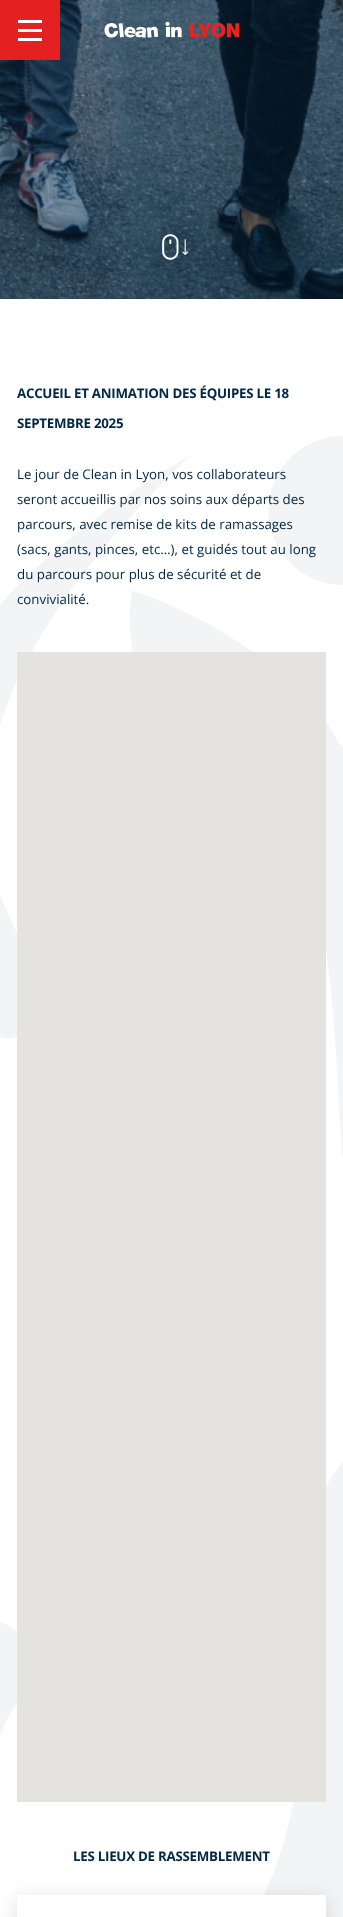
<svg xmlns="http://www.w3.org/2000/svg" width="343" height="1917">
	<rect width="100%" height="100%" fill="#FFFFFF" />
	<image x="0" y="0" width="343" height="299" href="assets/img2.png" />
	<rect x="0" y="0" width="60" height="60" fill="#E52020" />
	<rect x="18" y="20" width="24" height="3" fill="#FFFFFF" />
	<rect x="18" y="29" width="24" height="3" fill="#FFFFFF" />
	<rect x="18" y="38" width="24" height="3" fill="#FFFFFF" />
	<image x="104" y="21" width="136" height="17" href="assets/img1.png" />
	<image x="162" y="234" width="26" height="26" href="assets/img3.png" />
	<image x="0" y="436" width="343" height="1481" href="assets/img4.png" />
	<g font-family="Open Sans" font-size="13.3" font-weight="700" letter-spacing="-0.25" fill="#002743">
		<text x="17" y="398">ACCUEIL ET ANIMATION DES ÉQUIPES LE 18</text>
		<text x="17" y="428">SEPTEMBRE 2025</text>
	</g>
	<g font-family="Open Sans" font-size="13.3" fill="#002743">
		<text x="17" y="479">Le jour de Clean in Lyon, vos collaborateurs</text>
		<text x="17" y="504">seront accueillis par nos soins aux départs des</text>
		<text x="17" y="529">parcours, avec remise de kits de ramassages</text>
		<text x="17" y="554">(sacs, gants, pinces, etc…), et guidés tout au long</text>
		<text x="17" y="579">du parcours pour plus de sécurité et de</text>
		<text x="17" y="604">convivialité.</text>
	</g>
	<rect x="17" y="652" width="309" height="1150" fill="#E5E3DF" />
	<text x="73" y="1861" font-family="Open Sans" font-size="13.3" font-weight="700" letter-spacing="-0.25" fill="#002743">LES LIEUX DE RASSEMBLEMENT</text>
	<rect x="17" y="1898" width="309" height="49" fill="#000000" fill-opacity="0.12" filter="blur(10px)" />
	<rect x="17" y="1895" width="309" height="22" fill="#FFFFFF" />
</svg>
